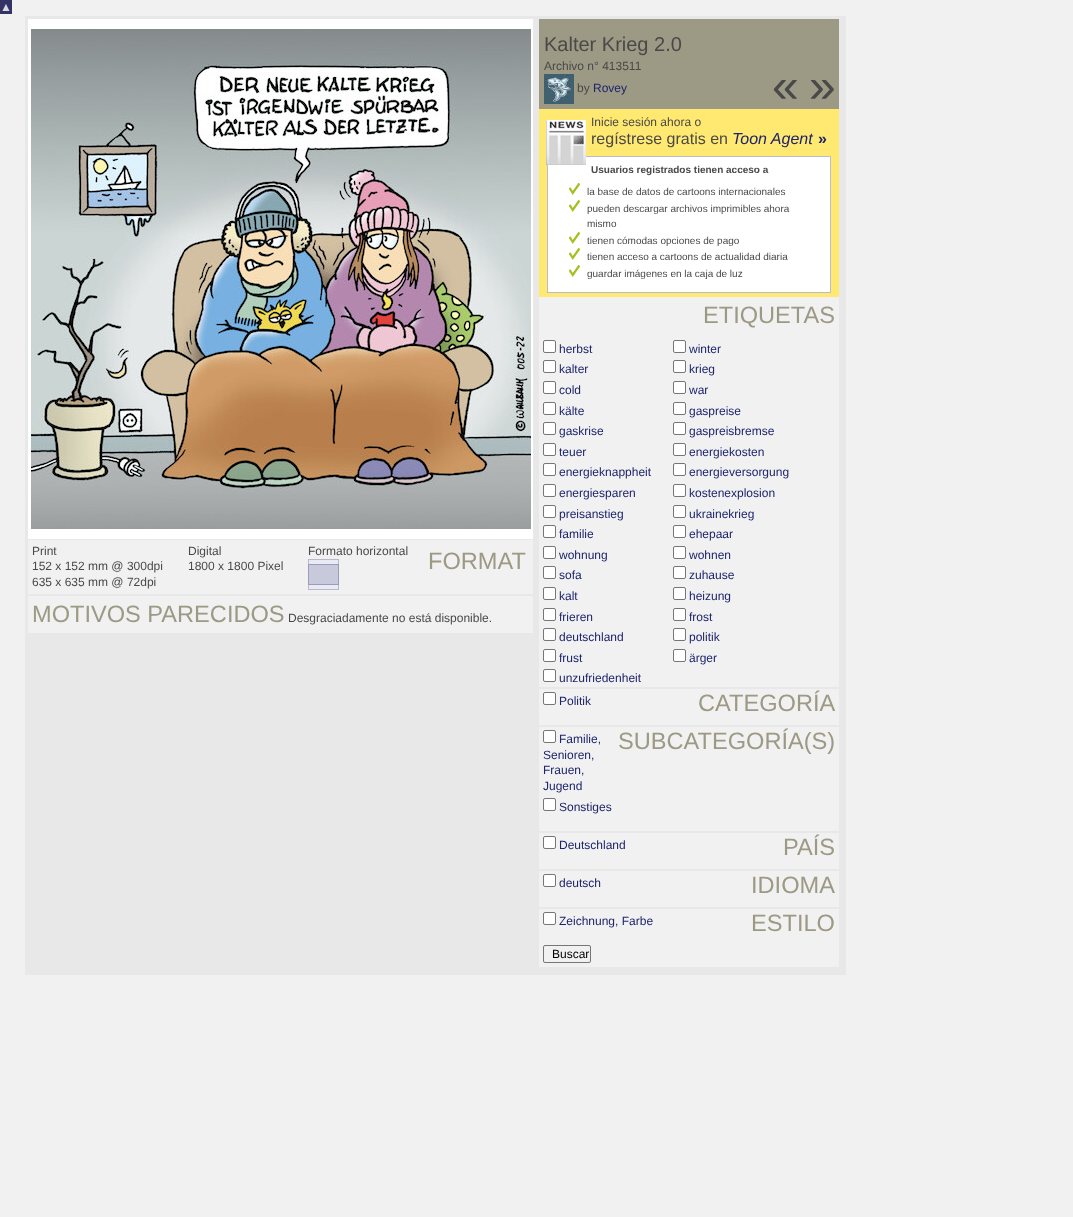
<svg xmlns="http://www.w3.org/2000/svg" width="1073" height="1217">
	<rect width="100%" height="100%" fill="#F1F1F1" />
	<rect x="0" y="0" width="12" height="14" fill="#333366" />
	<text x="0" y="11" font-family="Liberation Sans" font-size="12" fill="#D8D9E5">▲</text>
	<rect x="25" y="16" width="821" height="959" fill="#E8E8E8" />
	<rect x="28" y="19" width="505" height="520" fill="#FFFFFF" />
	<image x="31" y="29" width="500" height="500" href="assets/img1.png" />
	<rect x="28" y="540" width="505" height="54" fill="#F1F1F1" />
	<g font-family="Liberation Sans" font-size="12" fill="#494949">
		<text x="32" y="555">Print</text>
		<text x="32" y="570">152 x 152 mm @ 300dpi</text>
		<text x="32" y="586">635 x 635 mm @ 72dpi</text>
		<text x="188" y="555">Digital</text>
		<text x="188" y="570">1800 x 1800 Pixel</text>
		<text x="308" y="555">Formato horizontal</text>
	</g>
	<image x="308" y="559" width="31" height="31" href="assets/img2.png" />
	<text x="428" y="569" font-family="Liberation Sans" font-size="23.6" fill="#9C9984">FORMAT</text>
	<rect x="28" y="596" width="505" height="37" fill="#F1F1F1" />
	<text x="32" y="622" font-family="Liberation Sans" font-size="23.6" fill="#9C9984">MOTIVOS PARECIDOS</text>
	<text x="288" y="622" font-family="Liberation Sans" font-size="12" fill="#494949">Desgraciadamente no está disponible.</text>
	<rect x="539" y="19" width="300" height="90" fill="#9C9984" />
	<text x="544" y="51" font-family="Liberation Sans" font-size="20" fill="#494949">Kalter Krieg 2.0</text>
	<text x="544" y="70" font-family="Liberation Sans" font-size="12" fill="#494949">Archivo n° 413511</text>
	<image x="544" y="74" width="30" height="30" href="assets/img3.png" />
	<text x="577" y="92" font-family="Liberation Sans" font-size="12" fill="#494949">by</text>
	<text x="593" y="92" font-family="Liberation Sans" font-size="12" fill="#1D246C">Rovey</text>
	<g font-family="Liberation Sans" font-size="48" fill="#494949">
		<text x="772" y="102">«</text>
		<text x="809" y="102">»</text>
	</g>
	<rect x="539" y="109" width="300" height="188" fill="#FFE970" />
	<rect x="547.5" y="156.5" width="283" height="136" fill="#FFFFFF" stroke="#B9BBD0" />
	<image x="546" y="120" width="40" height="45" href="assets/img4.png" />
	<text x="591" y="126" font-family="Liberation Sans" font-size="12" fill="#494949">Inicie sesión ahora o</text>
	<text x="591" y="144" font-family="Liberation Sans" font-size="16" fill="#494949">regístrese gratis en</text>
	<text x="732" y="144" font-family="Liberation Sans" font-size="16" font-style="italic" fill="#1D246C">Toon Agent</text>
	<text x="818" y="144" font-family="Liberation Sans" font-size="16" font-weight="700" fill="#1D246C">»</text>
	<text x="591" y="173" font-family="Liberation Sans" font-size="10" font-weight="700" fill="#494949">Usuarios registrados tienen acceso a</text>
	<image x="569" y="183" width="11" height="12" href="assets/img5.png" />
	<text x="587" y="195" font-family="Liberation Sans" font-size="10" fill="#494949">la base de datos de cartoons internacionales</text>
	<image x="569" y="200" width="11" height="12" href="assets/img5.png" />
	<g font-family="Liberation Sans" font-size="10" fill="#494949">
		<text x="587" y="212">pueden descargar archivos imprimibles ahora</text>
		<text x="587" y="227">mismo</text>
	</g>
	<image x="569" y="232" width="11" height="12" href="assets/img5.png" />
	<text x="587" y="244" font-family="Liberation Sans" font-size="10" fill="#494949">tienen cómodas opciones de pago</text>
	<image x="569" y="248" width="11" height="12" href="assets/img5.png" />
	<text x="587" y="260" font-family="Liberation Sans" font-size="10" fill="#494949">tienen acceso a cartoons de actualidad diaria</text>
	<image x="569" y="265" width="11" height="12" href="assets/img5.png" />
	<text x="587" y="277" font-family="Liberation Sans" font-size="10" fill="#494949">guardar imágenes en la caja de luz</text>
	<rect x="539" y="297" width="300" height="670" fill="#F1F1F1" />
	<text x="703" y="323" font-family="Liberation Sans" font-size="23.6" fill="#9C9984">ETIQUETAS</text>
	<rect x="543.5" y="340.5" width="12" height="12" rx="1.5" fill="#FFFFFF" stroke="#767676" />
	<text x="559" y="353" font-family="Liberation Sans" font-size="12" fill="#1D246C">herbst</text>
	<rect x="673.5" y="340.5" width="12" height="12" rx="1.5" fill="#FFFFFF" stroke="#767676" />
	<text x="689" y="353" font-family="Liberation Sans" font-size="12" fill="#1D246C">winter</text>
	<rect x="543.5" y="360.5" width="12" height="12" rx="1.5" fill="#FFFFFF" stroke="#767676" />
	<text x="559" y="373" font-family="Liberation Sans" font-size="12" fill="#1D246C">kalter</text>
	<rect x="673.5" y="360.5" width="12" height="12" rx="1.5" fill="#FFFFFF" stroke="#767676" />
	<text x="689" y="373" font-family="Liberation Sans" font-size="12" fill="#1D246C">krieg</text>
	<rect x="543.5" y="381.5" width="12" height="12" rx="1.5" fill="#FFFFFF" stroke="#767676" />
	<text x="559" y="394" font-family="Liberation Sans" font-size="12" fill="#1D246C">cold</text>
	<rect x="673.5" y="381.5" width="12" height="12" rx="1.5" fill="#FFFFFF" stroke="#767676" />
	<text x="689" y="394" font-family="Liberation Sans" font-size="12" fill="#1D246C">war</text>
	<rect x="543.5" y="402.5" width="12" height="12" rx="1.5" fill="#FFFFFF" stroke="#767676" />
	<text x="559" y="415" font-family="Liberation Sans" font-size="12" fill="#1D246C">kälte</text>
	<rect x="673.5" y="402.5" width="12" height="12" rx="1.5" fill="#FFFFFF" stroke="#767676" />
	<text x="689" y="415" font-family="Liberation Sans" font-size="12" fill="#1D246C">gaspreise</text>
	<rect x="543.5" y="422.5" width="12" height="12" rx="1.5" fill="#FFFFFF" stroke="#767676" />
	<text x="559" y="435" font-family="Liberation Sans" font-size="12" fill="#1D246C">gaskrise</text>
	<rect x="673.5" y="422.5" width="12" height="12" rx="1.5" fill="#FFFFFF" stroke="#767676" />
	<text x="689" y="435" font-family="Liberation Sans" font-size="12" fill="#1D246C">gaspreisbremse</text>
	<rect x="543.5" y="443.5" width="12" height="12" rx="1.5" fill="#FFFFFF" stroke="#767676" />
	<text x="559" y="456" font-family="Liberation Sans" font-size="12" fill="#1D246C">teuer</text>
	<rect x="673.5" y="443.5" width="12" height="12" rx="1.5" fill="#FFFFFF" stroke="#767676" />
	<text x="689" y="456" font-family="Liberation Sans" font-size="12" fill="#1D246C">energiekosten</text>
	<rect x="543.5" y="463.5" width="12" height="12" rx="1.5" fill="#FFFFFF" stroke="#767676" />
	<text x="559" y="476" font-family="Liberation Sans" font-size="12" fill="#1D246C">energieknappheit</text>
	<rect x="673.5" y="463.5" width="12" height="12" rx="1.5" fill="#FFFFFF" stroke="#767676" />
	<text x="689" y="476" font-family="Liberation Sans" font-size="12" fill="#1D246C">energieversorgung</text>
	<rect x="543.5" y="484.5" width="12" height="12" rx="1.5" fill="#FFFFFF" stroke="#767676" />
	<text x="559" y="497" font-family="Liberation Sans" font-size="12" fill="#1D246C">energiesparen</text>
	<rect x="673.5" y="484.5" width="12" height="12" rx="1.5" fill="#FFFFFF" stroke="#767676" />
	<text x="689" y="497" font-family="Liberation Sans" font-size="12" fill="#1D246C">kostenexplosion</text>
	<rect x="543.5" y="505.5" width="12" height="12" rx="1.5" fill="#FFFFFF" stroke="#767676" />
	<text x="559" y="518" font-family="Liberation Sans" font-size="12" fill="#1D246C">preisanstieg</text>
	<rect x="673.5" y="505.5" width="12" height="12" rx="1.5" fill="#FFFFFF" stroke="#767676" />
	<text x="689" y="518" font-family="Liberation Sans" font-size="12" fill="#1D246C">ukrainekrieg</text>
	<rect x="543.5" y="525.5" width="12" height="12" rx="1.5" fill="#FFFFFF" stroke="#767676" />
	<text x="559" y="538" font-family="Liberation Sans" font-size="12" fill="#1D246C">familie</text>
	<rect x="673.5" y="525.5" width="12" height="12" rx="1.5" fill="#FFFFFF" stroke="#767676" />
	<text x="689" y="538" font-family="Liberation Sans" font-size="12" fill="#1D246C">ehepaar</text>
	<rect x="543.5" y="546.5" width="12" height="12" rx="1.5" fill="#FFFFFF" stroke="#767676" />
	<text x="559" y="559" font-family="Liberation Sans" font-size="12" fill="#1D246C">wohnung</text>
	<rect x="673.5" y="546.5" width="12" height="12" rx="1.5" fill="#FFFFFF" stroke="#767676" />
	<text x="689" y="559" font-family="Liberation Sans" font-size="12" fill="#1D246C">wohnen</text>
	<rect x="543.5" y="566.5" width="12" height="12" rx="1.5" fill="#FFFFFF" stroke="#767676" />
	<text x="559" y="579" font-family="Liberation Sans" font-size="12" fill="#1D246C">sofa</text>
	<rect x="673.5" y="566.5" width="12" height="12" rx="1.5" fill="#FFFFFF" stroke="#767676" />
	<text x="689" y="579" font-family="Liberation Sans" font-size="12" fill="#1D246C">zuhause</text>
	<rect x="543.5" y="587.5" width="12" height="12" rx="1.5" fill="#FFFFFF" stroke="#767676" />
	<text x="559" y="600" font-family="Liberation Sans" font-size="12" fill="#1D246C">kalt</text>
	<rect x="673.5" y="587.5" width="12" height="12" rx="1.5" fill="#FFFFFF" stroke="#767676" />
	<text x="689" y="600" font-family="Liberation Sans" font-size="12" fill="#1D246C">heizung</text>
	<rect x="543.5" y="608.5" width="12" height="12" rx="1.5" fill="#FFFFFF" stroke="#767676" />
	<text x="559" y="621" font-family="Liberation Sans" font-size="12" fill="#1D246C">frieren</text>
	<rect x="673.5" y="608.5" width="12" height="12" rx="1.5" fill="#FFFFFF" stroke="#767676" />
	<text x="689" y="621" font-family="Liberation Sans" font-size="12" fill="#1D246C">frost</text>
	<rect x="543.5" y="628.5" width="12" height="12" rx="1.5" fill="#FFFFFF" stroke="#767676" />
	<text x="559" y="641" font-family="Liberation Sans" font-size="12" fill="#1D246C">deutschland</text>
	<rect x="673.5" y="628.5" width="12" height="12" rx="1.5" fill="#FFFFFF" stroke="#767676" />
	<text x="689" y="641" font-family="Liberation Sans" font-size="12" fill="#1D246C">politik</text>
	<rect x="543.5" y="649.5" width="12" height="12" rx="1.5" fill="#FFFFFF" stroke="#767676" />
	<text x="559" y="662" font-family="Liberation Sans" font-size="12" fill="#1D246C">frust</text>
	<rect x="673.5" y="649.5" width="12" height="12" rx="1.5" fill="#FFFFFF" stroke="#767676" />
	<text x="689" y="662" font-family="Liberation Sans" font-size="12" fill="#1D246C">ärger</text>
	<rect x="543.5" y="669.5" width="12" height="12" rx="1.5" fill="#FFFFFF" stroke="#767676" />
	<text x="559" y="682" font-family="Liberation Sans" font-size="12" fill="#1D246C">unzufriedenheit</text>
	<rect x="539" y="687" width="300" height="2" fill="#E8E8E8" />
	<rect x="543.5" y="692.5" width="12" height="12" rx="1.5" fill="#FFFFFF" stroke="#767676" />
	<text x="559" y="705" font-family="Liberation Sans" font-size="12" fill="#1D246C">Politik</text>
	<text x="698" y="711" font-family="Liberation Sans" font-size="23.6" fill="#9C9984">CATEGORÍA</text>
	<rect x="539" y="725" width="300" height="2" fill="#E8E8E8" />
	<rect x="543.5" y="730.5" width="12" height="12" rx="1.5" fill="#FFFFFF" stroke="#767676" />
	<text x="559" y="743" font-family="Liberation Sans" font-size="12" fill="#1D246C">Familie,</text>
	<text x="618" y="749" font-family="Liberation Sans" font-size="23.6" fill="#9C9984">SUBCATEGORÍA(S)</text>
	<g font-family="Liberation Sans" font-size="12" fill="#1D246C">
		<text x="543" y="759">Senioren,</text>
		<text x="543" y="774">Frauen,</text>
		<text x="543" y="790">Jugend</text>
	</g>
	<rect x="543.5" y="798.5" width="12" height="12" rx="1.5" fill="#FFFFFF" stroke="#767676" />
	<text x="559" y="811" font-family="Liberation Sans" font-size="12" fill="#1D246C">Sonstiges</text>
	<rect x="539" y="831" width="300" height="2" fill="#E8E8E8" />
	<rect x="543.5" y="836.5" width="12" height="12" rx="1.5" fill="#FFFFFF" stroke="#767676" />
	<text x="559" y="849" font-family="Liberation Sans" font-size="12" fill="#1D246C">Deutschland</text>
	<text x="783" y="855" font-family="Liberation Sans" font-size="23.6" fill="#9C9984">PAÍS</text>
	<rect x="539" y="869" width="300" height="2" fill="#E8E8E8" />
	<rect x="543.5" y="874.5" width="12" height="12" rx="1.5" fill="#FFFFFF" stroke="#767676" />
	<text x="559" y="887" font-family="Liberation Sans" font-size="12" fill="#1D246C">deutsch</text>
	<text x="751" y="893" font-family="Liberation Sans" font-size="23.6" fill="#9C9984">IDIOMA</text>
	<rect x="539" y="907" width="300" height="2" fill="#E8E8E8" />
	<rect x="543.5" y="912.5" width="12" height="12" rx="1.5" fill="#FFFFFF" stroke="#767676" />
	<text x="559" y="925" font-family="Liberation Sans" font-size="12" fill="#1D246C">Zeichnung, Farbe</text>
	<text x="751" y="931" font-family="Liberation Sans" font-size="23.6" fill="#9C9984">ESTILO</text>
	<rect x="543.5" y="945.5" width="47" height="17" rx="1.5" fill="none" stroke="#767676" />
	<text x="552" y="958" font-family="Liberation Sans" font-size="12" fill="#000000">Buscar</text>
</svg>
